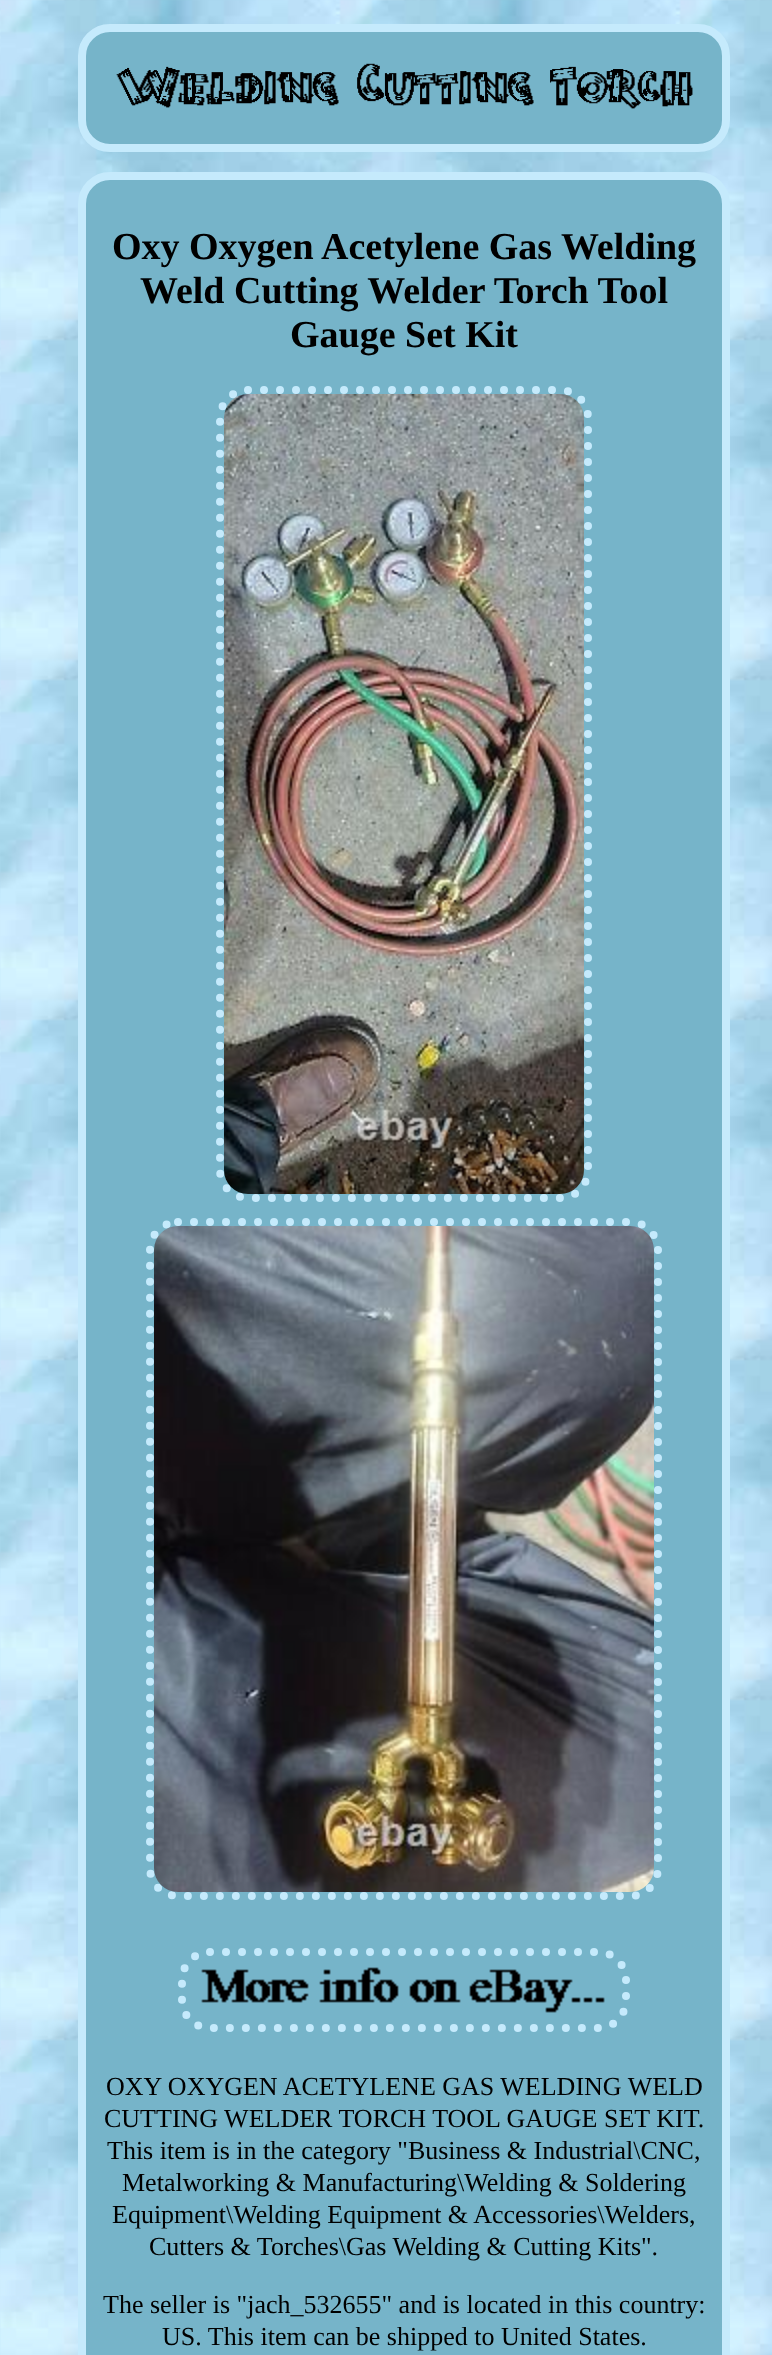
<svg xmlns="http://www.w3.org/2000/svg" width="772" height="2355">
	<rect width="100%" height="100%" fill="#FFFFFF" />
	<image x="0" y="0" width="772" height="2355" href="assets/img1.png" />
	<rect x="82" y="28" width="644" height="120" rx="28" fill="#76B4C9" stroke="#C5EAFC" stroke-width="8" />
	<image x="116" y="63" width="577" height="46" href="assets/img2.png" />
	<rect x="82" y="176" width="644" height="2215" rx="28" fill="#76B4C9" stroke="#C5EAFC" stroke-width="8" />
	<g font-family="Liberation Serif" font-size="38" font-weight="700" fill="#000000">
		<text x="112" y="259">Oxy Oxygen Acetylene Gas Welding</text>
		<text x="140" y="303">Weld Cutting Welder Torch Tool</text>
		<text x="290" y="347">Gauge Set Kit</text>
	</g>
	<path d="M248 390H560C575.5 390 588 402.5 588 418V1170C588 1185.5 575.5 1198 560 1198H248C232.5 1198 220 1185.5 220 1170V418C220 402.5 232.5 390 248 390Z" fill="none" stroke="#C5EAFC" stroke-width="8" stroke-linecap="round" stroke-dasharray="0 16" />
	<image x="224" y="394" width="360" height="800" href="assets/img3.png" />
	<path d="M178 1222H630C645.5 1222 658 1234.5 658 1250V1868C658 1883.5 645.5 1896 630 1896H178C162.5 1896 150 1883.5 150 1868V1250C150 1234.5 162.5 1222 178 1222Z" fill="none" stroke="#C5EAFC" stroke-width="8" stroke-linecap="round" stroke-dasharray="0 16" />
	<image x="154" y="1226" width="500" height="666" href="assets/img4.png" />
	<path d="M210 1952H598C613.5 1952 626 1964.5 626 1980V2000C626 2015.5 613.5 2028 598 2028H210C194.5 2028 182 2015.5 182 2000V1980C182 1964.5 194.5 1952 210 1952Z" fill="none" stroke="#C5EAFC" stroke-width="8" stroke-linecap="round" stroke-dasharray="0 16" />
	<image x="201" y="1967" width="404" height="46" href="assets/img5.png" />
	<g font-family="Liberation Serif" font-size="26" fill="#000000">
		<text x="106" y="2095">OXY OXYGEN ACETYLENE GAS WELDING WELD</text>
		<text x="104" y="2127">CUTTING WELDER TORCH TOOL GAUGE SET KIT.</text>
		<text x="107" y="2159">This item is in the category "Business &amp; Industrial\CNC,</text>
		<text x="122" y="2191">Metalworking &amp; Manufacturing\Welding &amp; Soldering</text>
		<text x="112" y="2223">Equipment\Welding Equipment &amp; Accessories\Welders,</text>
		<text x="149" y="2255">Cutters &amp; Torches\Gas Welding &amp; Cutting Kits".</text>
		<text x="103" y="2313">The seller is "jach_532655" and is located in this country:</text>
		<text x="162" y="2345">US. This item can be shipped to United States.</text>
	</g>
</svg>
